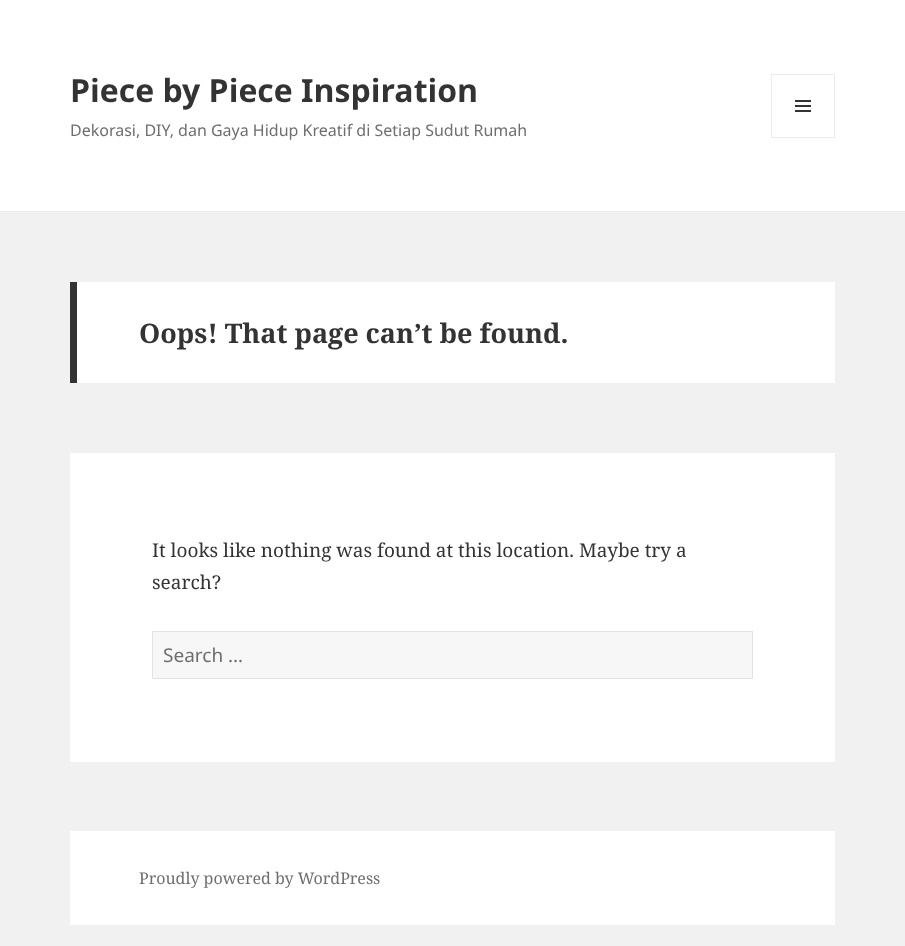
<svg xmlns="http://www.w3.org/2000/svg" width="905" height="946">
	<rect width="100%" height="100%" fill="#F1F1F1" />
	<rect x="0" y="0" width="905" height="211" fill="#FFFFFF" />
	<rect x="0" y="211" width="905" height="1" fill="#EBEBEB" />
	<text x="70" y="102" font-family="Noto Sans" font-size="32" font-weight="700" fill="#333333">Piece by Piece Inspiration</text>
	<rect x="771.5" y="74.5" width="63" height="63" fill="none" stroke="#EBEBEB" />
	<image x="795" y="100" width="16" height="12" href="assets/img1.png" />
	<text x="70" y="136" font-family="Noto Sans" font-size="16" fill="#6E6E6E">Dekorasi, DIY, dan Gaya Hidup Kreatif di Setiap Sudut Rumah</text>
	<rect x="77" y="282" width="758" height="101" fill="#FFFFFF" />
	<rect x="70" y="282" width="7" height="101" fill="#333333" />
	<text x="139" y="343" font-family="Noto Serif" font-size="27" font-weight="700" fill="#333333">Oops! That page can’t be found.</text>
	<rect x="70" y="453" width="765" height="309" fill="#FFFFFF" />
	<g font-family="Noto Serif" font-size="19" fill="#333333">
		<text x="152" y="557">It looks like nothing was found at this location. Maybe try a</text>
		<text x="152" y="589">search?</text>
	</g>
	<rect x="152.5" y="631.5" width="600" height="47" fill="#F7F7F7" stroke="#E3E3E3" />
	<text x="163" y="662" font-family="Noto Sans" font-size="19" fill="#6E6E6E">Search …</text>
	<rect x="70" y="831" width="765" height="94" fill="#FFFFFF" />
	<text x="139" y="884" font-family="Noto Serif" font-size="16" fill="#6E6E6E">Proudly powered by WordPress</text>
</svg>
